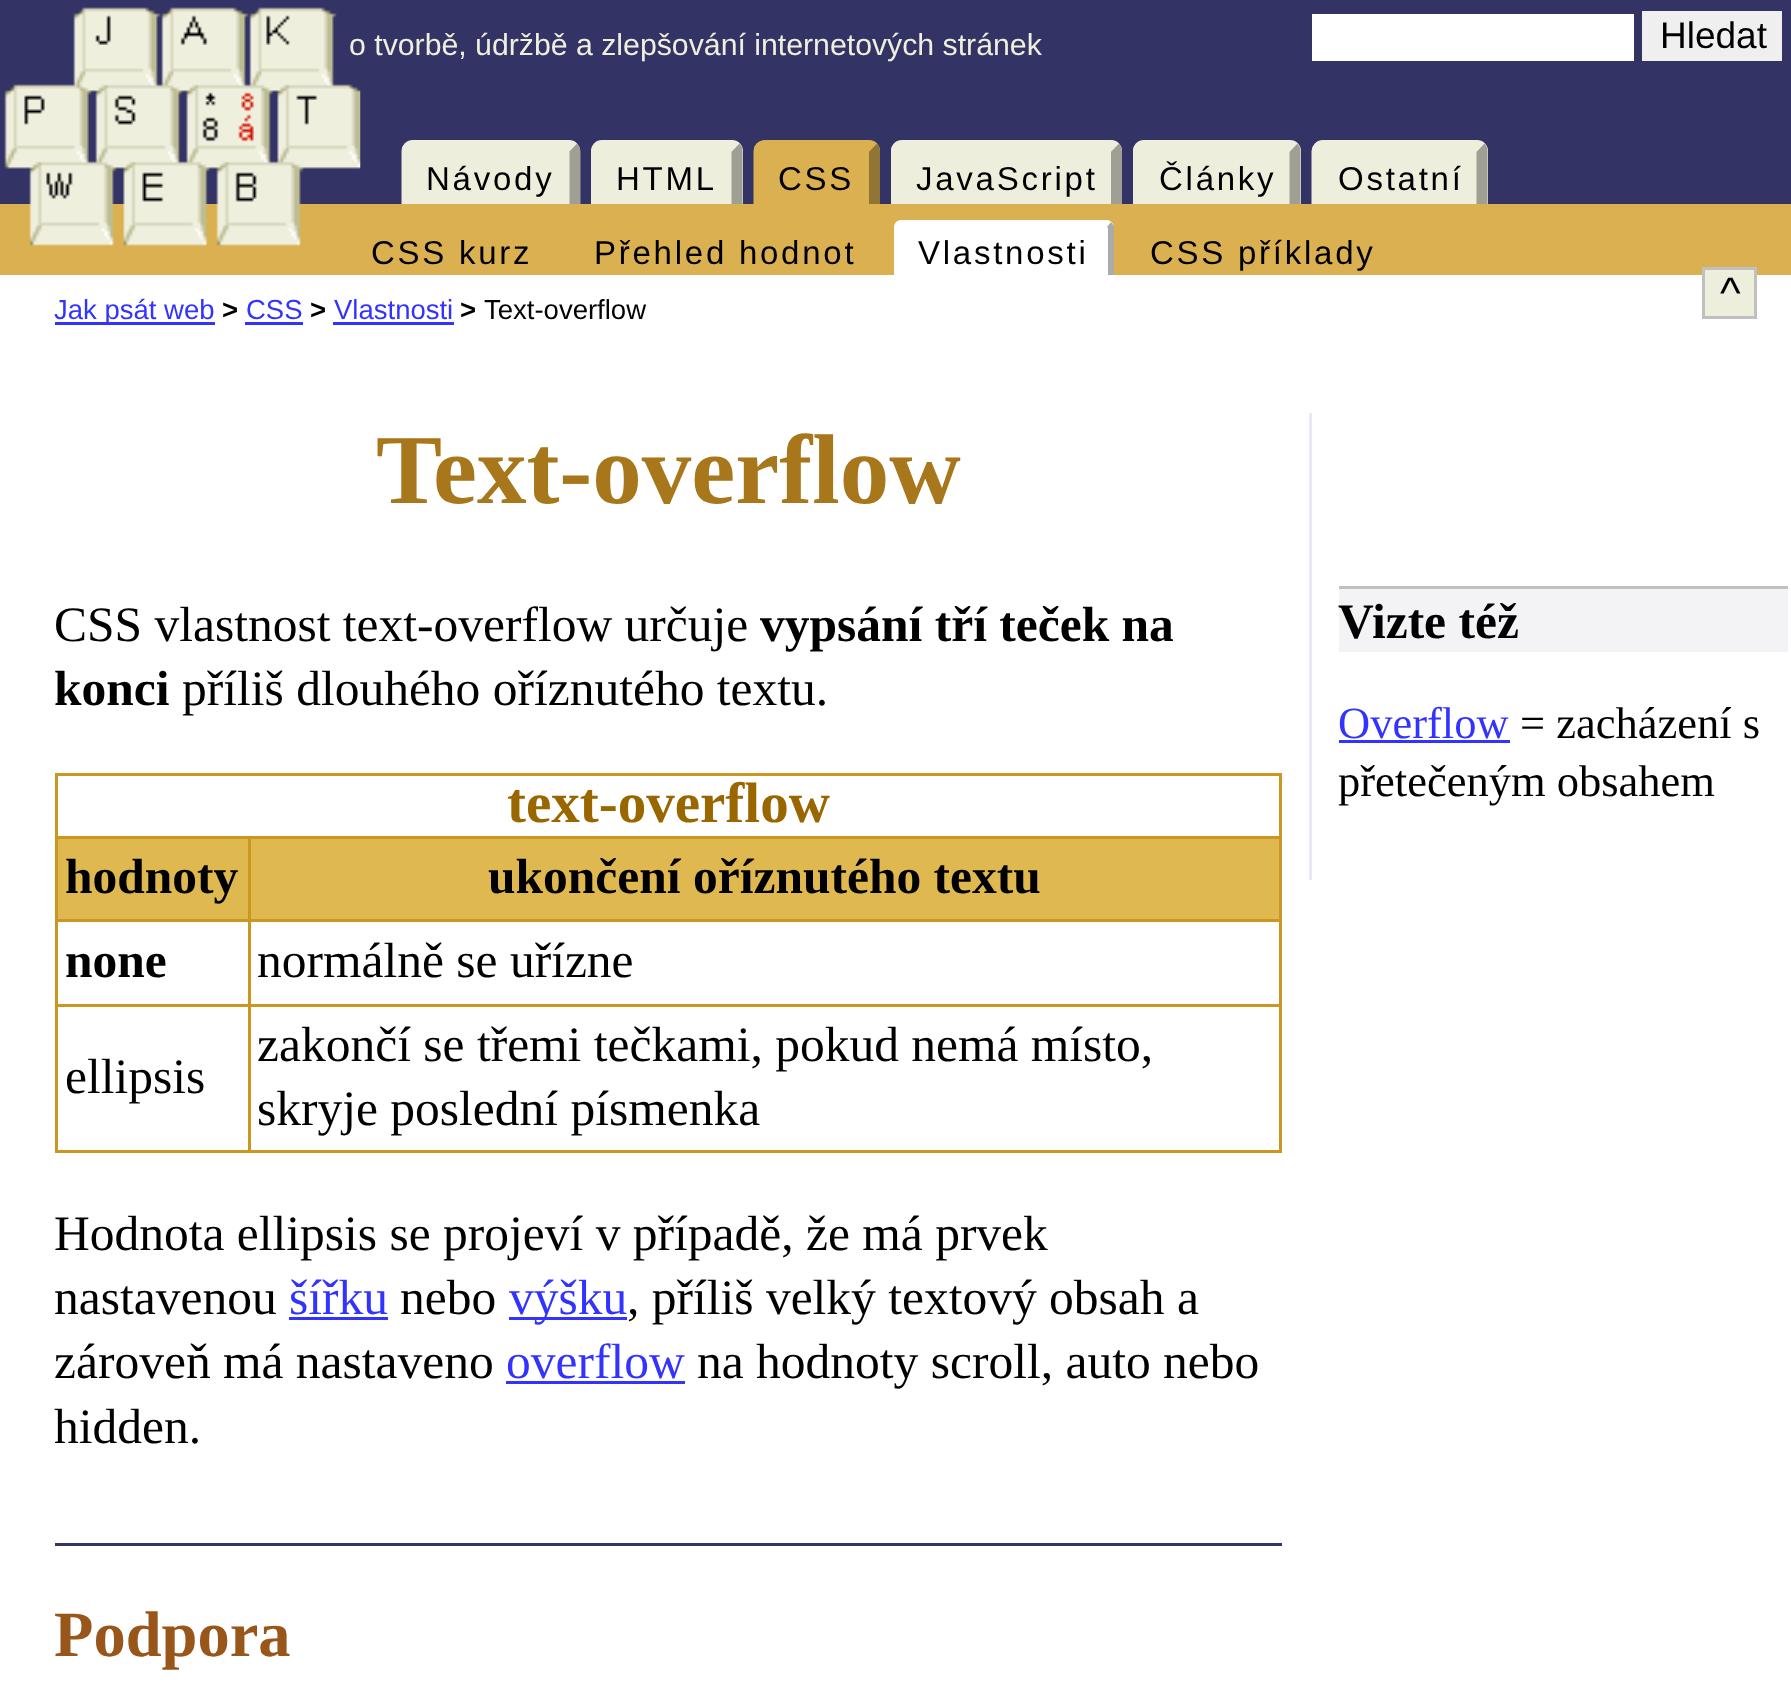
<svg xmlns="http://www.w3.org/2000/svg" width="1791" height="1687">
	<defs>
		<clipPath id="clip1"><rect x="0" y="204" width="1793" height="71" /></clipPath>
	</defs>
	<rect width="100%" height="100%" fill="#FFFFFF" />
	<rect x="0" y="0" width="1791" height="204" fill="#333366" />
	<text x="349" y="55" font-family="Liberation Sans" font-size="30.25" fill="#EFEFDE">o tvorbě, údržbě a zlepšování internetových stránek</text>
	<rect x="402" y="140" width="178" height="77" rx="11" fill="#EEEEDD" />
	<path d="M573 147.5C574 148.5 575 150 575 151V206C575 207.5 574 209 573 210C572 211 570.5 212 569 212H412.5C411 212 409.5 211 408.5 210" fill="none" stroke="#9F9F93" stroke-width="11" />
	<path d="M408.5 210C407.5 209 407 207.5 407 206V151C407 150 407.5 148.5 408.5 147.5C409.5 146.5 411 146 412.5 146H569C570.5 146 572 146.5 573 147.5" fill="none" stroke="#EEEEDD" stroke-width="11" />
	<rect x="591" y="140" width="152" height="77" rx="11" fill="#EEEEDD" />
	<path d="M735.5 147.5C736.5 148.5 737 150 737 151V206C737 207.5 736.5 209 735.5 210C734.5 211 733 212 731.5 212H602C601 212 599.5 211 598.5 210" fill="none" stroke="#9F9F93" stroke-width="11" />
	<path d="M598.5 210C597.5 209 597 207.5 597 206V151C597 150 597.5 148.5 598.5 147.5C599.5 146.5 601 146 602 146H731.5C733 146 734.5 146.5 735.5 147.5" fill="none" stroke="#EEEEDD" stroke-width="11" />
	<rect x="754" y="140" width="126" height="77" rx="11" fill="#DAB050" />
	<path d="M873 147.5C874 148.5 874.5 150 874.5 151V206C874.5 207.5 874 209 873 210C872 211 870.5 212 869 212H764.5C763 212 761.5 211 760.5 210" fill="none" stroke="#917535" stroke-width="11" />
	<path d="M760.5 210C759.5 209 759 207.5 759 206V151C759 150 759.5 148.5 760.5 147.5C761.5 146.5 763 146 764.5 146H869C870.5 146 872 146.5 873 147.5" fill="none" stroke="#DAB050" stroke-width="11" />
	<rect x="891" y="140" width="231" height="77" rx="11" fill="#EEEEDD" />
	<path d="M1115 147.5C1116 148.5 1116.5 150 1116.5 151V206C1116.5 207.5 1116 209 1115 210C1114 211 1112.5 212 1111 212H902C900.5 212 899 211 898 210" fill="none" stroke="#9F9F93" stroke-width="11" />
	<path d="M898 210C897 209 896.5 207.5 896.5 206V151C896.5 150 897 148.5 898 147.5C899 146.5 900.5 146 902 146H1111C1112.5 146 1114 146.5 1115 147.5" fill="none" stroke="#EEEEDD" stroke-width="11" />
	<rect x="1133" y="140" width="168" height="77" rx="11" fill="#EEEEDD" />
	<path d="M1293.5 147.5C1294.5 148.5 1295 150 1295 151V206C1295 207.5 1294.5 209 1293.5 210C1292.5 211 1291 212 1290 212H1144C1142.5 212 1141 211 1140 210" fill="none" stroke="#9F9F93" stroke-width="11" />
	<path d="M1140 210C1139 209 1138.5 207.5 1138.5 206V151C1138.5 150 1139 148.5 1140 147.5C1141 146.5 1142.5 146 1144 146H1290C1291 146 1292.5 146.5 1293.5 147.5" fill="none" stroke="#EEEEDD" stroke-width="11" />
	<rect x="1312" y="140" width="176" height="77" rx="11" fill="#EEEEDD" />
	<path d="M1480.5 147.5C1481.5 148.5 1482 150 1482 151V206C1482 207.5 1481.5 209 1480.5 210C1479.5 211 1478 212 1477 212H1323C1321.5 212 1320 211 1319 210" fill="none" stroke="#9F9F93" stroke-width="11" />
	<path d="M1319 210C1318 209 1317 207.5 1317 206V151C1317 150 1318 148.5 1319 147.5C1320 146.5 1321.5 146 1323 146H1477C1478 146 1479.5 146.5 1480.5 147.5" fill="none" stroke="#EEEEDD" stroke-width="11" />
	<rect x="0" y="204" width="1791" height="71" fill="#DAB050" />
	<image x="4" y="7" width="357" height="239" href="assets/img1.png" />
	<rect x="1312" y="14" width="322" height="47" fill="#FFFFFF" />
	<rect x="1642" y="11" width="140" height="50" fill="#EFEFEF" />
	<text x="1660" y="48" font-family="Liberation Sans" font-size="37" fill="#000000">Hledat</text>
	<g font-family="Liberation Sans" font-size="33" letter-spacing="2.75" fill="#000000">
		<text x="426" y="190">Návody</text>
		<text x="616" y="190">HTML</text>
		<text x="778" y="190">CSS</text>
		<text x="916" y="190">JavaScript</text>
		<text x="1159" y="190">Články</text>
		<text x="1338" y="190">Ostatní</text>
		<text x="371" y="264">CSS kurz</text>
		<text x="594" y="264">Přehled hodnot</text>
	</g>
	<path d="M902 220H1106C1110.5 220 1114 223.5 1114 228V275H894V228C894 223.5 897.5 220 902 220Z" fill="#FFFFFF" />
	<text x="918" y="264" font-family="Liberation Sans" font-size="33" letter-spacing="2.75" fill="#000000">Vlastnosti</text>
	<path d="M902 220C900 220 898 221 896 222L900 226H902H1106L1107 227L1111 222C1110 221 1108 220 1106 220Z" fill="#FFFFFF" />
	<g clip-path="url(#clip1)">
		<path d="M1114 226V286L1108 280V228L1107 227L1111 222Z" fill="#AAAAAA" />
		<path d="M896 222C895 224 894 226 894 228V286L900 280H899V228L900 226Z" fill="#FFFFFF" />
	</g>
	<text x="1150" y="264" font-family="Liberation Sans" font-size="33" letter-spacing="2.75" fill="#000000">CSS příklady</text>
	<rect x="1703.5" y="268.5" width="52" height="49" fill="#EEEEDD" stroke="#C0C0C0" stroke-width="3" />
	<text x="1720" y="308" font-family="Liberation Sans" font-size="44" fill="#000000">^</text>
	<rect x="55" y="322" width="160" height="3" fill="#3333FF" />
	<text x="54" y="319" font-family="Liberation Sans" font-size="27.5" fill="#3333FF">Jak psát web</text>
	<text x="222" y="319" font-family="Liberation Sans" font-size="27.5" font-weight="700" fill="#000000">&gt;</text>
	<text x="246" y="319" font-family="Liberation Sans" font-size="27.5" fill="#3333FF">CSS</text>
	<rect x="245" y="322" width="58" height="3" fill="#3333FF" />
	<text x="310" y="319" font-family="Liberation Sans" font-size="27.5" font-weight="700" fill="#000000">&gt;</text>
	<text x="334" y="319" font-family="Liberation Sans" font-size="27.5" fill="#3333FF">Vlastnosti</text>
	<rect x="333" y="322" width="121" height="3" fill="#3333FF" />
	<text x="460" y="319" font-family="Liberation Sans" font-size="27.5" font-weight="700" fill="#000000">&gt;</text>
	<text x="484" y="319" font-family="Liberation Sans" font-size="27.5" fill="#000000">Text-overflow</text>
	<text x="376" y="503" font-family="Liberation Serif" font-size="99" font-weight="700" fill="#A8761B">Text-overflow</text>
	<text x="54" y="641" font-family="Liberation Serif" font-size="49.5" fill="#000000">CSS vlastnost text-overflow určuje</text>
	<g font-family="Liberation Serif" font-size="49.5" font-weight="700" fill="#000000">
		<text x="760" y="641">vypsání tří teček na</text>
		<text x="54" y="705">konci</text>
	</g>
	<text x="182" y="705" font-family="Liberation Serif" font-size="49.5" fill="#000000">příliš dlouhého oříznutého textu.</text>
	<rect x="55" y="773" width="1227" height="3" fill="#CA9820" />
	<rect x="1279" y="773" width="3" height="379" fill="#CA9820" />
	<rect x="55" y="1150" width="1227" height="3" fill="#CA9820" />
	<rect x="55" y="773" width="3" height="379" fill="#CA9820" />
	<text x="507" y="822" font-family="Liberation Serif" font-size="57" font-weight="700" fill="#996600">text-overflow</text>
	<rect x="58" y="839" width="190" height="80" fill="#E0B850" />
	<rect x="248" y="836" width="1034" height="3" fill="#CA9820" />
	<rect x="248" y="919" width="1034" height="3" fill="#CA9820" />
	<rect x="248" y="1004" width="1034" height="3" fill="#CA9820" />
	<rect x="248" y="1004" width="3" height="148" fill="#CA9820" />
	<rect x="55" y="1004" width="195" height="3" fill="#CA9820" />
	<rect x="248" y="919" width="3" height="88" fill="#CA9820" />
	<rect x="55" y="919" width="195" height="3" fill="#CA9820" />
	<rect x="248" y="836" width="3" height="85" fill="#CA9820" />
	<rect x="55" y="836" width="195" height="3" fill="#CA9820" />
	<text x="65" y="893" font-family="Liberation Serif" font-size="49.5" font-weight="700" fill="#000000">hodnoty</text>
	<rect x="251" y="839" width="1028" height="80" fill="#E0B850" />
	<g font-family="Liberation Serif" font-size="49.5" font-weight="700" fill="#000000">
		<text x="488" y="893">ukončení oříznutého textu</text>
		<text x="65" y="977">none</text>
	</g>
	<g font-family="Liberation Serif" font-size="49.5" fill="#000000">
		<text x="257" y="977">normálně se uřízne</text>
		<text x="65" y="1093">ellipsis</text>
		<text x="257" y="1061">zakončí se třemi tečkami, pokud nemá místo,</text>
		<text x="257" y="1125">skryje poslední písmenka</text>
		<text x="54" y="1250">Hodnota ellipsis se projeví v případě, že má prvek</text>
		<text x="54" y="1314">nastavenou</text>
	</g>
	<text x="289" y="1314" font-family="Liberation Serif" font-size="49.5" fill="#3333FF">šířku</text>
	<rect x="289" y="1317" width="99" height="3" fill="#3333FF" />
	<text x="400" y="1314" font-family="Liberation Serif" font-size="49.5" fill="#000000">nebo</text>
	<rect x="509" y="1317" width="118" height="3" fill="#3333FF" />
	<text x="509" y="1314" font-family="Liberation Serif" font-size="49.5" fill="#3333FF">výšku</text>
	<g font-family="Liberation Serif" font-size="49.5" fill="#000000">
		<text x="627" y="1314">, příliš velký textový obsah a</text>
		<text x="54" y="1378">zároveň má nastaveno</text>
	</g>
	<text x="506" y="1378" font-family="Liberation Serif" font-size="49.5" fill="#3333FF">overflow</text>
	<rect x="506" y="1381" width="179" height="3" fill="#3333FF" />
	<g font-family="Liberation Serif" font-size="49.5" fill="#000000">
		<text x="697" y="1378">na hodnoty scroll, auto nebo</text>
		<text x="54" y="1443">hidden.</text>
	</g>
	<rect x="55" y="1543" width="1227" height="3" fill="#333366" />
	<text x="54" y="1656" font-family="Liberation Serif" font-size="64.5" font-weight="700" fill="#98561B">Podpora</text>
	<rect x="1309" y="413" width="3" height="467" fill="#E8E8FD" />
	<rect x="1339" y="589" width="449" height="63" fill="#F3F3F6" />
	<rect x="1339" y="586" width="449" height="3" fill="#C0C0C0" />
	<text x="1338" y="638" font-family="Liberation Serif" font-size="49.5" font-weight="700" fill="#000000">Vizte též</text>
	<text x="1338" y="738" font-family="Liberation Serif" font-size="44.5" fill="#3333FF">Overflow</text>
	<rect x="1339" y="740" width="171" height="3" fill="#3333FF" />
	<g font-family="Liberation Serif" font-size="44.5" fill="#000000">
		<text x="1520" y="738">= zacházení s</text>
		<text x="1338" y="796">přetečeným obsahem</text>
	</g>
</svg>
